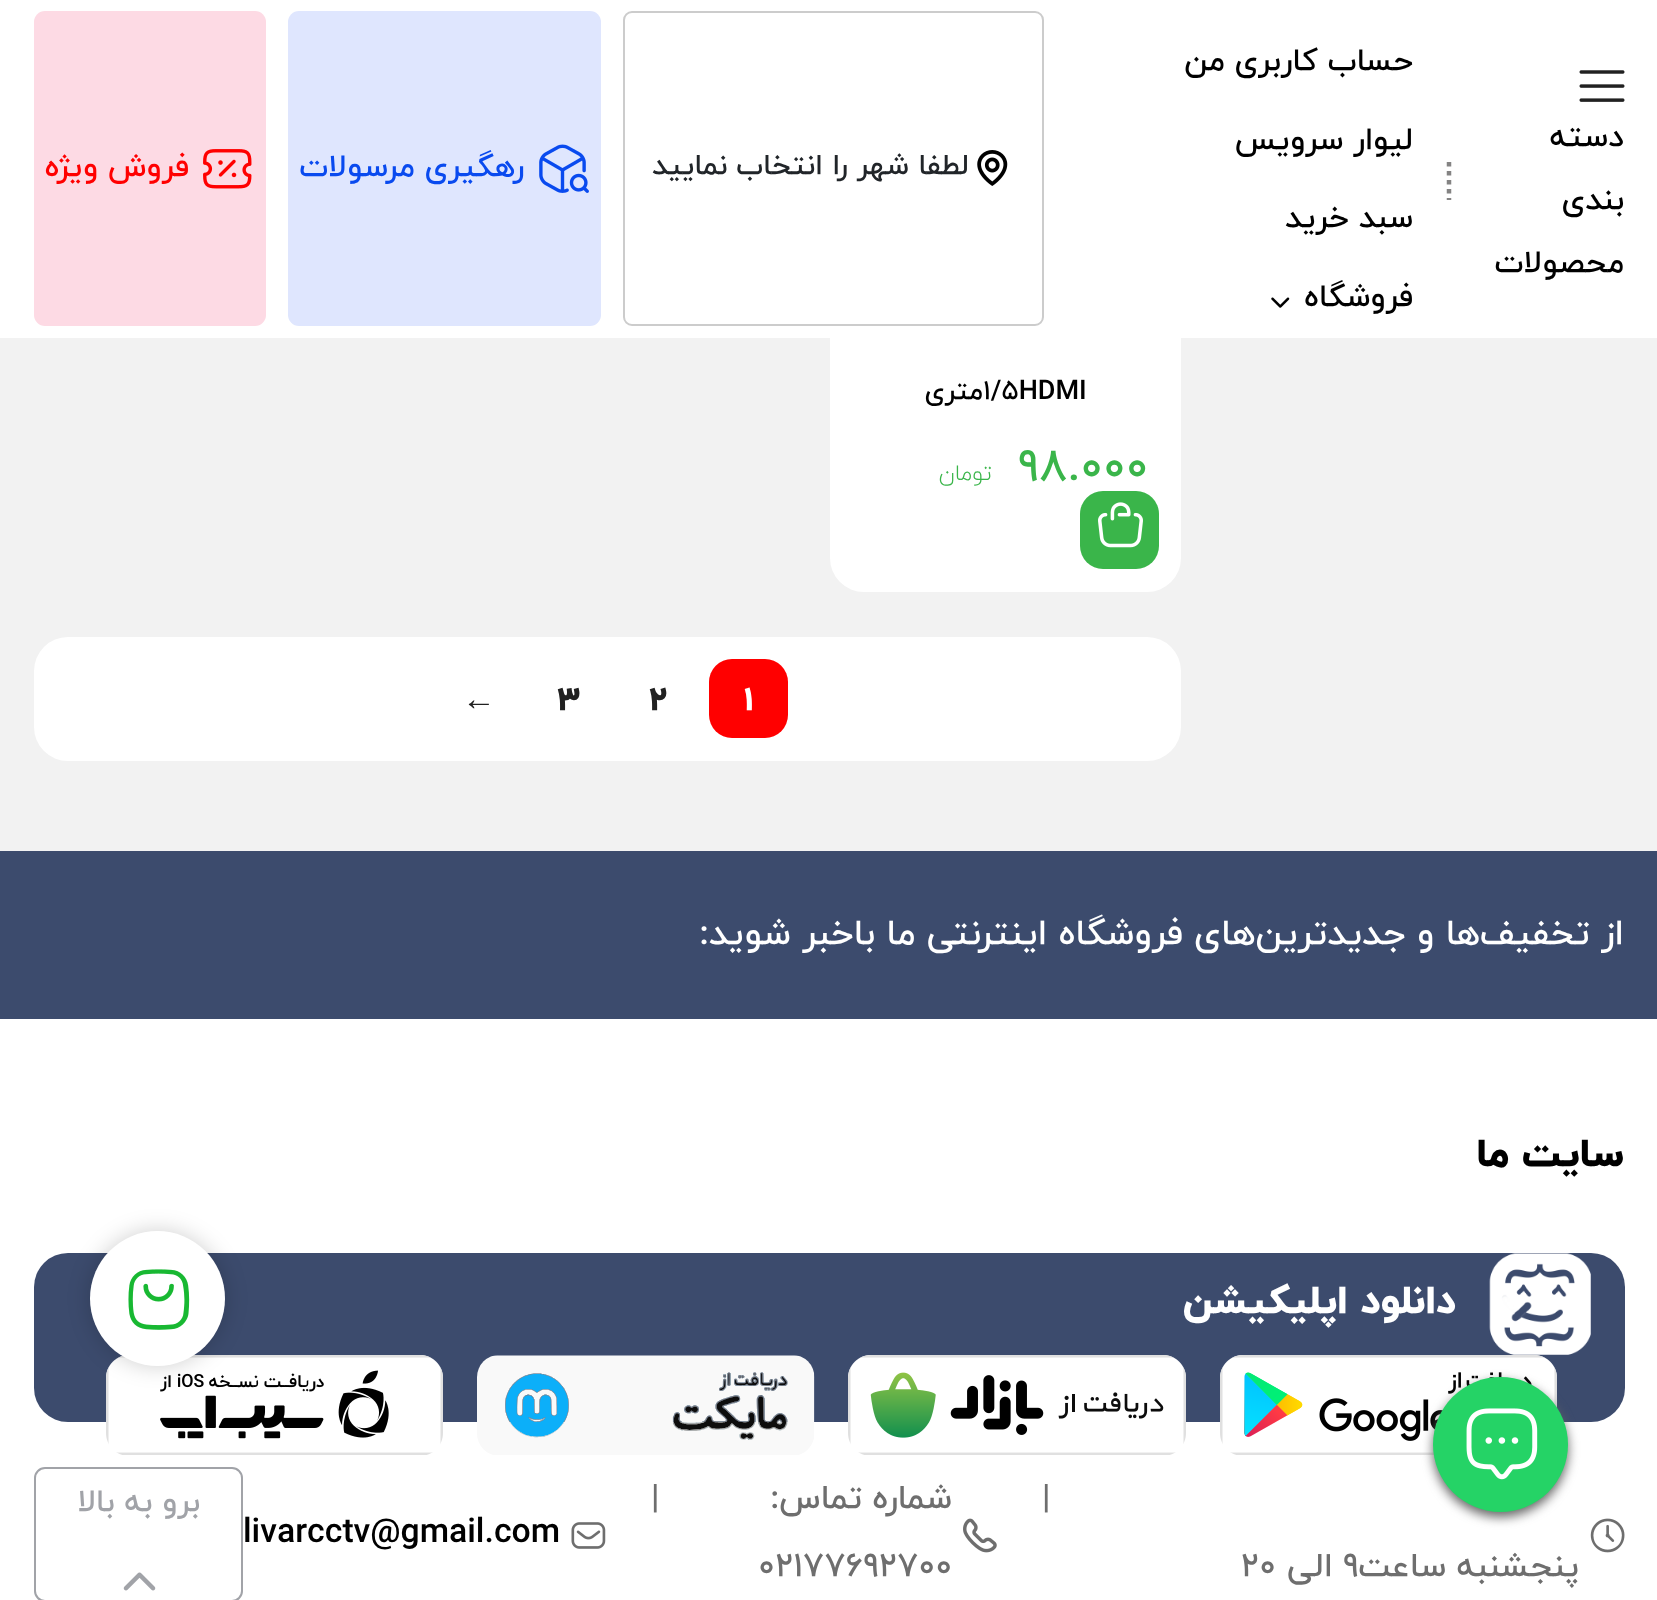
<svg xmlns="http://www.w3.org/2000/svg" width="1657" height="1600">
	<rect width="100%" height="100%" fill="#F2F2F2" />
	<rect x="830" y="-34" width="351" height="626" rx="34" fill="#FFFFFF" />
	<rect x="0" y="0" width="1657" height="338" fill="#FFFFFF" />
	<image x="1579" y="70" width="46" height="32" href="assets/img1.png" />
	<g font-family="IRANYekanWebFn" font-size="31.5" font-weight="500" direction="rtl" fill="#000000">
		<text x="1624" y="146">دسته</text>
		<text x="1624" y="209">بندی</text>
		<text x="1624" y="272">محصولات</text>
	</g>
	<path d="M1449 162V200" fill="none" stroke="#848383" stroke-width="4.5" stroke-dasharray="4.5 4.5" />
	<g font-family="IRANYekanWebFn" font-size="31.5" font-weight="500" direction="rtl" fill="#000000">
		<text x="1413" y="70">حساب کاربری من</text>
		<text x="1413" y="149">لیوار سرویس</text>
		<text x="1413" y="227">سبد خرید</text>
		<text x="1413" y="306">فروشگاه</text>
	</g>
	<image x="1271" y="297" width="19" height="11" href="assets/img2.png" />
	<rect x="624" y="12" width="419" height="313" rx="8" fill="none" stroke="#CCCCCC" stroke-width="2" />
	<image x="977" y="150" width="31" height="36" href="assets/img3.png" />
	<text x="969" y="174" font-family="IRANYekanWebFn" font-size="29.25" font-weight="500" direction="rtl" fill="#212529">لطفا شهر را انتخاب نمایید</text>
	<rect x="288" y="11" width="313" height="315" rx="11" fill="#DFE6FE" />
	<image x="539" y="144" width="50" height="49" href="assets/img4.png" />
	<text x="524" y="176" font-family="IRANYekanWebFn" font-size="31.5" font-weight="500" direction="rtl" fill="#094AEF">رهگیری مرسولات</text>
	<rect x="34" y="11" width="232" height="315" rx="11" fill="#FDDAE4" />
	<image x="203" y="149" width="49" height="40" href="assets/img5.png" />
	<text x="189" y="176" font-family="IRANYekanWebFn" font-size="31.5" font-weight="500" direction="rtl" fill="#FF0000">فروش ویژه</text>
	<text x="983" y="399" font-family="IRANYekanWebFn" font-size="27" font-weight="500" fill="#000000">۱/۵HDMI</text>
	<text x="983" y="399" font-family="IRANYekanWebFn" font-size="27" font-weight="500" direction="rtl" fill="#000000">متری</text>
	<text x="1018" y="480" font-family="IRANYekanWebFn" font-size="45" font-weight="500" fill="#3AB54A">98.000</text>
	<text x="992" y="480" font-family="IRANYekanWebFn" font-size="22.5" font-weight="300" direction="rtl" fill="#3AB54A">تومان</text>
	<rect x="1080" y="491" width="79" height="78" rx="23" fill="#3AB54A" />
	<image x="1098" y="502" width="45" height="46" href="assets/img6.png" />
	<rect x="34" y="637" width="1147" height="124" rx="34" fill="#FFFFFF" />
	<rect x="709" y="659" width="79" height="79" rx="23" fill="#FF0000" />
	<text x="744" y="710" font-family="IRANYekanWebFn" font-size="33.75" font-weight="800" fill="#FFFFFF">1</text>
	<g font-family="IRANYekanWebFn" font-size="33.75" font-weight="800" fill="#212121">
		<text x="649" y="710">2</text>
		<text x="557" y="710">3</text>
	</g>
	<text x="462" y="710" font-family="Liberation Serif" font-size="33.75" font-weight="700" fill="#212121">←</text>
	<rect x="0" y="1019" width="1657" height="581" fill="#FFFFFF" />
	<rect x="0" y="851" width="1657" height="168" fill="#3C4B6D" />
	<text x="1624" y="944" font-family="IRANYekanWebFn" font-size="36" font-weight="500" direction="rtl" fill="#FFFFFF">از تخفیف‌ها و جدیدترین‌های فروشگاه اینترنتی ما باخبر شوید:</text>
	<text x="1624" y="1166" font-family="IRANYekanWebFn" font-size="40.5" font-weight="800" direction="rtl" fill="#000000">سایت ما</text>
	<rect x="34" y="1253" width="1591" height="169" rx="34" fill="#3C4B6D" />
	<image x="1489" y="1253" width="102" height="102" href="assets/img7.png" />
	<text x="1456" y="1313" font-family="IRANYekanWebFn" font-size="40.5" font-weight="800" direction="rtl" fill="#FFFFFF">دانلود اپلیکیشن</text>
	<image x="1220" y="1355" width="337" height="100" href="assets/img8.png" />
	<image x="848" y="1355" width="338" height="100" href="assets/img9.png" />
	<image x="477" y="1355" width="338" height="100" href="assets/img10.png" />
	<image x="106" y="1355" width="337" height="100" href="assets/img11.png" />
	<text x="1042" y="1508" font-family="IRANYekanWebFn" font-size="33.75" font-weight="500" fill="#6E6E6E">|</text>
	<text x="952" y="1508" font-family="IRANYekanWebFn" font-size="33.75" font-weight="500" direction="rtl" fill="#6E6E6E">شماره تماس:</text>
	<image x="963" y="1518" width="34" height="35" href="assets/img12.png" />
	<g font-family="IRANYekanWebFn" font-size="33.75" font-weight="500" fill="#6E6E6E">
		<text x="758" y="1576">02177692700</text>
		<text x="651" y="1508">|</text>
	</g>
	<image x="571" y="1522" width="35" height="27" href="assets/img13.png" />
	<text x="243" y="1542" font-family="IRANYekanWebFn" font-size="33.75" font-weight="500" fill="#000000">livarcctv@gmail.com</text>
	<image x="1590" y="1518" width="35" height="35" href="assets/img14.png" />
	<text x="1579" y="1576" font-family="IRANYekanWebFn" font-size="33.75" font-weight="500" direction="rtl" fill="#6E6E6E">پنجشنبه ساعت</text>
	<text x="1343" y="1576" font-family="IRANYekanWebFn" font-size="33.75" font-weight="500" fill="#6E6E6E">۹</text>
	<text x="1333" y="1576" font-family="IRANYekanWebFn" font-size="33.75" font-weight="500" direction="rtl" fill="#6E6E6E">الی</text>
	<text x="1241" y="1576" font-family="IRANYekanWebFn" font-size="33.75" font-weight="500" fill="#6E6E6E">۲۰</text>
	<rect x="35" y="1468" width="207" height="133" rx="10" fill="none" stroke="#A1A3A8" stroke-width="2" />
	<text x="200" y="1511" font-family="IRANYekanWebFn" font-size="31.5" font-weight="500" direction="rtl" fill="#A1A3A8">برو به بالا</text>
	<image x="123" y="1572" width="33" height="19" href="assets/img15.png" />
	<rect x="90" y="1231" width="135" height="135" rx="67.5" fill="#000000" fill-opacity="0.19" filter="blur(11px)" />
	<circle cx="157.5" cy="1298.5" r="67.5" fill="#FFFFFF" />
	<image x="128" y="1269" width="62" height="61" href="assets/img16.png" />
	<rect x="1433" y="1382" width="135" height="135" rx="67.5" fill="#666666" filter="blur(5.5px)" />
	<circle cx="1500.5" cy="1444.5" r="67.5" fill="#25D366" />
	<image x="1466" y="1408" width="72" height="72" href="assets/img17.png" />
</svg>
